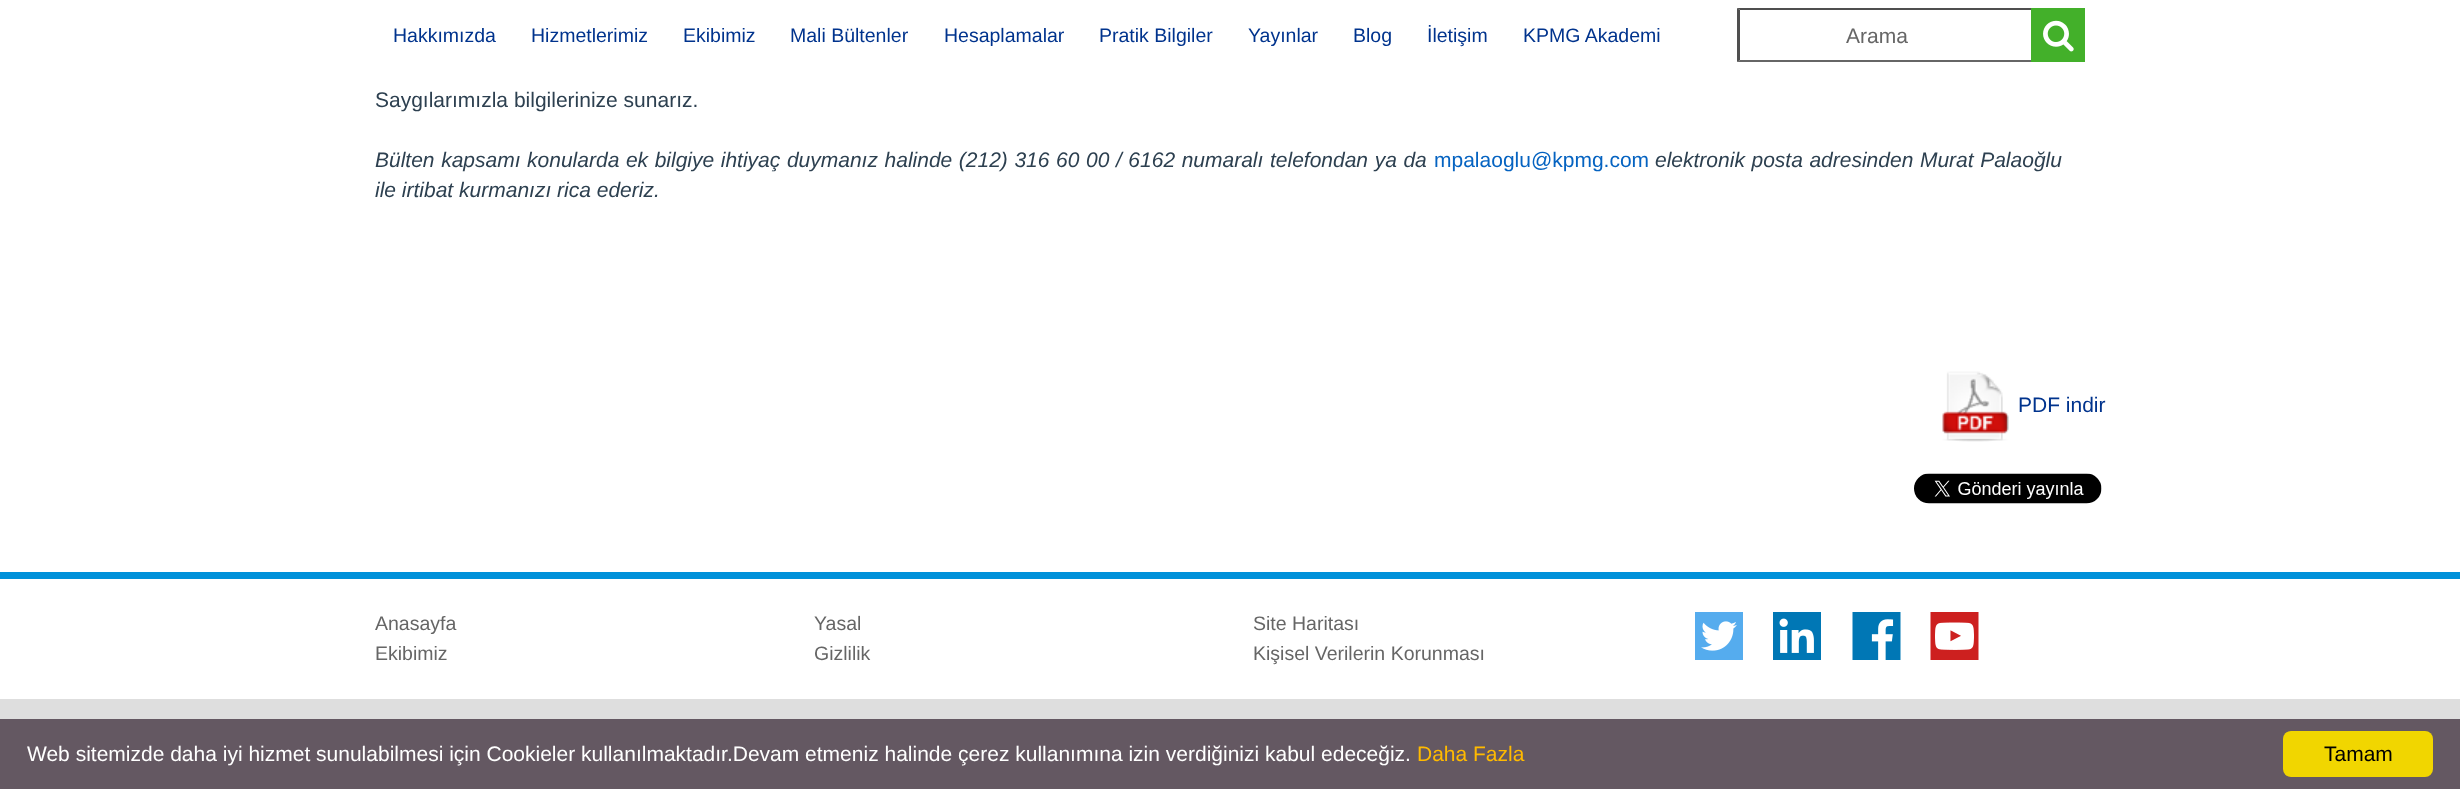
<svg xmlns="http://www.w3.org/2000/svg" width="2460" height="789">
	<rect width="100%" height="100%" fill="#FFFFFF" />
	<g font-family="Liberation Sans" font-size="19.5" fill="#00338D">
		<text x="393" y="42">Hakkımızda</text>
		<text x="531" y="42">Hizmetlerimiz</text>
		<text x="683" y="42">Ekibimiz</text>
		<text x="790" y="42">Mali Bültenler</text>
		<text x="944" y="42">Hesaplamalar</text>
		<text x="1099" y="42">Pratik Bilgiler</text>
		<text x="1248" y="42">Yayınlar</text>
		<text x="1353" y="42">Blog</text>
		<text x="1427" y="42">İletişim</text>
		<text x="1523" y="42">KPMG Akademi</text>
	</g>
	<path d="M1737 8H2085L2082 10H1740Z" fill="#4F4F4F" />
	<path d="M2085 62H1737L1740 60H2082Z" fill="#666666" />
	<path d="M1737 62V8L1740 10V60Z" fill="#4F4F4F" />
	<text x="1846" y="43" font-family="Liberation Sans" font-size="21" fill="#666666">Arama</text>
	<rect x="2031" y="8" width="54" height="54" fill="#43B02A" />
	<image x="2043" y="20" width="31" height="32" href="assets/img1.png" />
	<text x="375" y="107" font-family="Liberation Sans" font-size="21" fill="#2D4050">Saygılarımızla bilgilerinize sunarız.</text>
	<text x="375" y="167" word-spacing="0.75" font-family="Liberation Sans" font-size="21" font-style="italic" fill="#2D4050">Bülten kapsamı konularda ek bilgiye ihtiyaç duymanız halinde (212) 316 60 00 / 6162 numaralı telefondan ya da</text>
	<text x="1434" y="167" font-family="Liberation Sans" font-size="21" fill="#0563C1">mpalaoglu@kpmg.com</text>
	<g font-family="Liberation Sans" font-size="21" font-style="italic" fill="#2D4050">
		<text x="1655" y="167" word-spacing="0.75">elektronik posta adresinden Murat Palaoğlu</text>
		<text x="375" y="197">ile irtibat kurmanızı rica ederiz.</text>
	</g>
	<image x="1942" y="371" width="67" height="71" href="assets/img2.png" />
	<text x="2018" y="412" font-family="Liberation Sans" font-size="21" fill="#00338D">PDF indir</text>
	<image x="1914" y="473" width="188" height="31" href="assets/img3.png" />
	<rect x="0" y="572" width="2460" height="7" fill="#0091DA" />
	<g font-family="Liberation Sans" font-size="19.5" fill="#666666">
		<text x="375" y="630">Anasayfa</text>
		<text x="375" y="660">Ekibimiz</text>
		<text x="814" y="630">Yasal</text>
		<text x="814" y="660">Gizlilik</text>
		<text x="1253" y="630">Site Haritası</text>
		<text x="1253" y="660">Kişisel Verilerin Korunması</text>
	</g>
	<image x="1695" y="612" width="48" height="48" href="assets/img4.png" />
	<image x="1773" y="612" width="48" height="48" href="assets/img5.png" />
	<image x="1852" y="612" width="49" height="48" href="assets/img6.png" />
	<image x="1930" y="612" width="49" height="48" href="assets/img7.png" />
	<rect x="0" y="699" width="2460" height="20" fill="#DEDEDE" />
	<rect x="0" y="719" width="2460" height="70" fill="#645862" />
	<text x="27" y="761" font-family="Liberation Sans" font-size="21" fill="#FFFFFF">Web sitemizde daha iyi hizmet sunulabilmesi için Cookieler kullanılmaktadır.Devam etmeniz halinde çerez kullanımına izin verdiğinizi kabul edeceğiz.</text>
	<text x="1417" y="761" font-family="Liberation Sans" font-size="21" fill="#FFBA00">Daha Fazla</text>
	<rect x="2283" y="731" width="150" height="46" rx="8" fill="#F1D600" />
	<text x="2324" y="761" font-family="Liberation Sans" font-size="21" fill="#000000">Tamam</text>
</svg>
